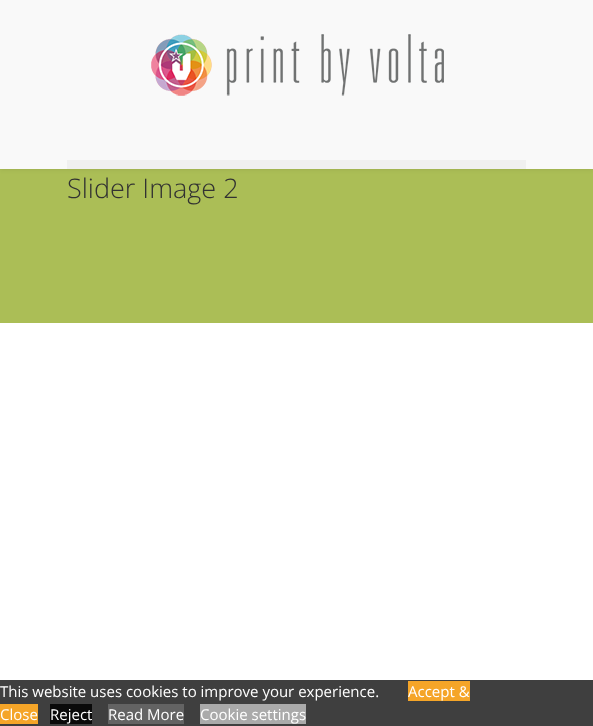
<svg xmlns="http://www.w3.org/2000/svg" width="593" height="726">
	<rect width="100%" height="100%" fill="#FFFFFF" />
	<rect x="0" y="169" width="593" height="154" fill="#ABBE56" />
	<rect x="0" y="0" width="593" height="169" fill="#000000" fill-opacity="0.1" filter="blur(2.5px)" />
	<rect x="0" y="0" width="593" height="169" fill="#F9F9F9" />
	<image x="151" y="34" width="293" height="62" href="assets/img1.png" />
	<rect x="67" y="160" width="459" height="9" fill="#F0F0F0" />
	<text x="67" y="198" font-family="Open Sans" font-size="27" font-weight="300" fill="#323232">Slider Image 2</text>
	<rect x="0" y="680" width="593" height="46" fill="#3F3F3F" />
	<text x="0" y="697" font-family="Open Sans" font-size="15" fill="#FFFFFF">This website uses cookies to improve your experience.</text>
	<rect x="408" y="681" width="62" height="20" fill="#F5A528" />
	<text x="408" y="697" font-family="Open Sans" font-size="15" fill="#FFFFFF">Accept &amp;</text>
	<rect x="0" y="704" width="38" height="20" fill="#F5A528" />
	<text x="0" y="720" font-family="Open Sans" font-size="15" fill="#FFFFFF">Close</text>
	<rect x="50" y="704" width="42" height="20" fill="#0A0A0A" />
	<text x="50" y="720" font-family="Open Sans" font-size="15" fill="#FFFFFF">Reject</text>
	<rect x="108" y="704" width="76" height="20" fill="#636363" />
	<text x="108" y="720" font-family="Open Sans" font-size="15" fill="#FFFFFF">Read More</text>
	<rect x="200" y="704" width="106" height="20" fill="#AAAAAA" />
	<text x="200" y="720" font-family="Open Sans" font-size="15" fill="#FFFFFF">Cookie settings</text>
</svg>
